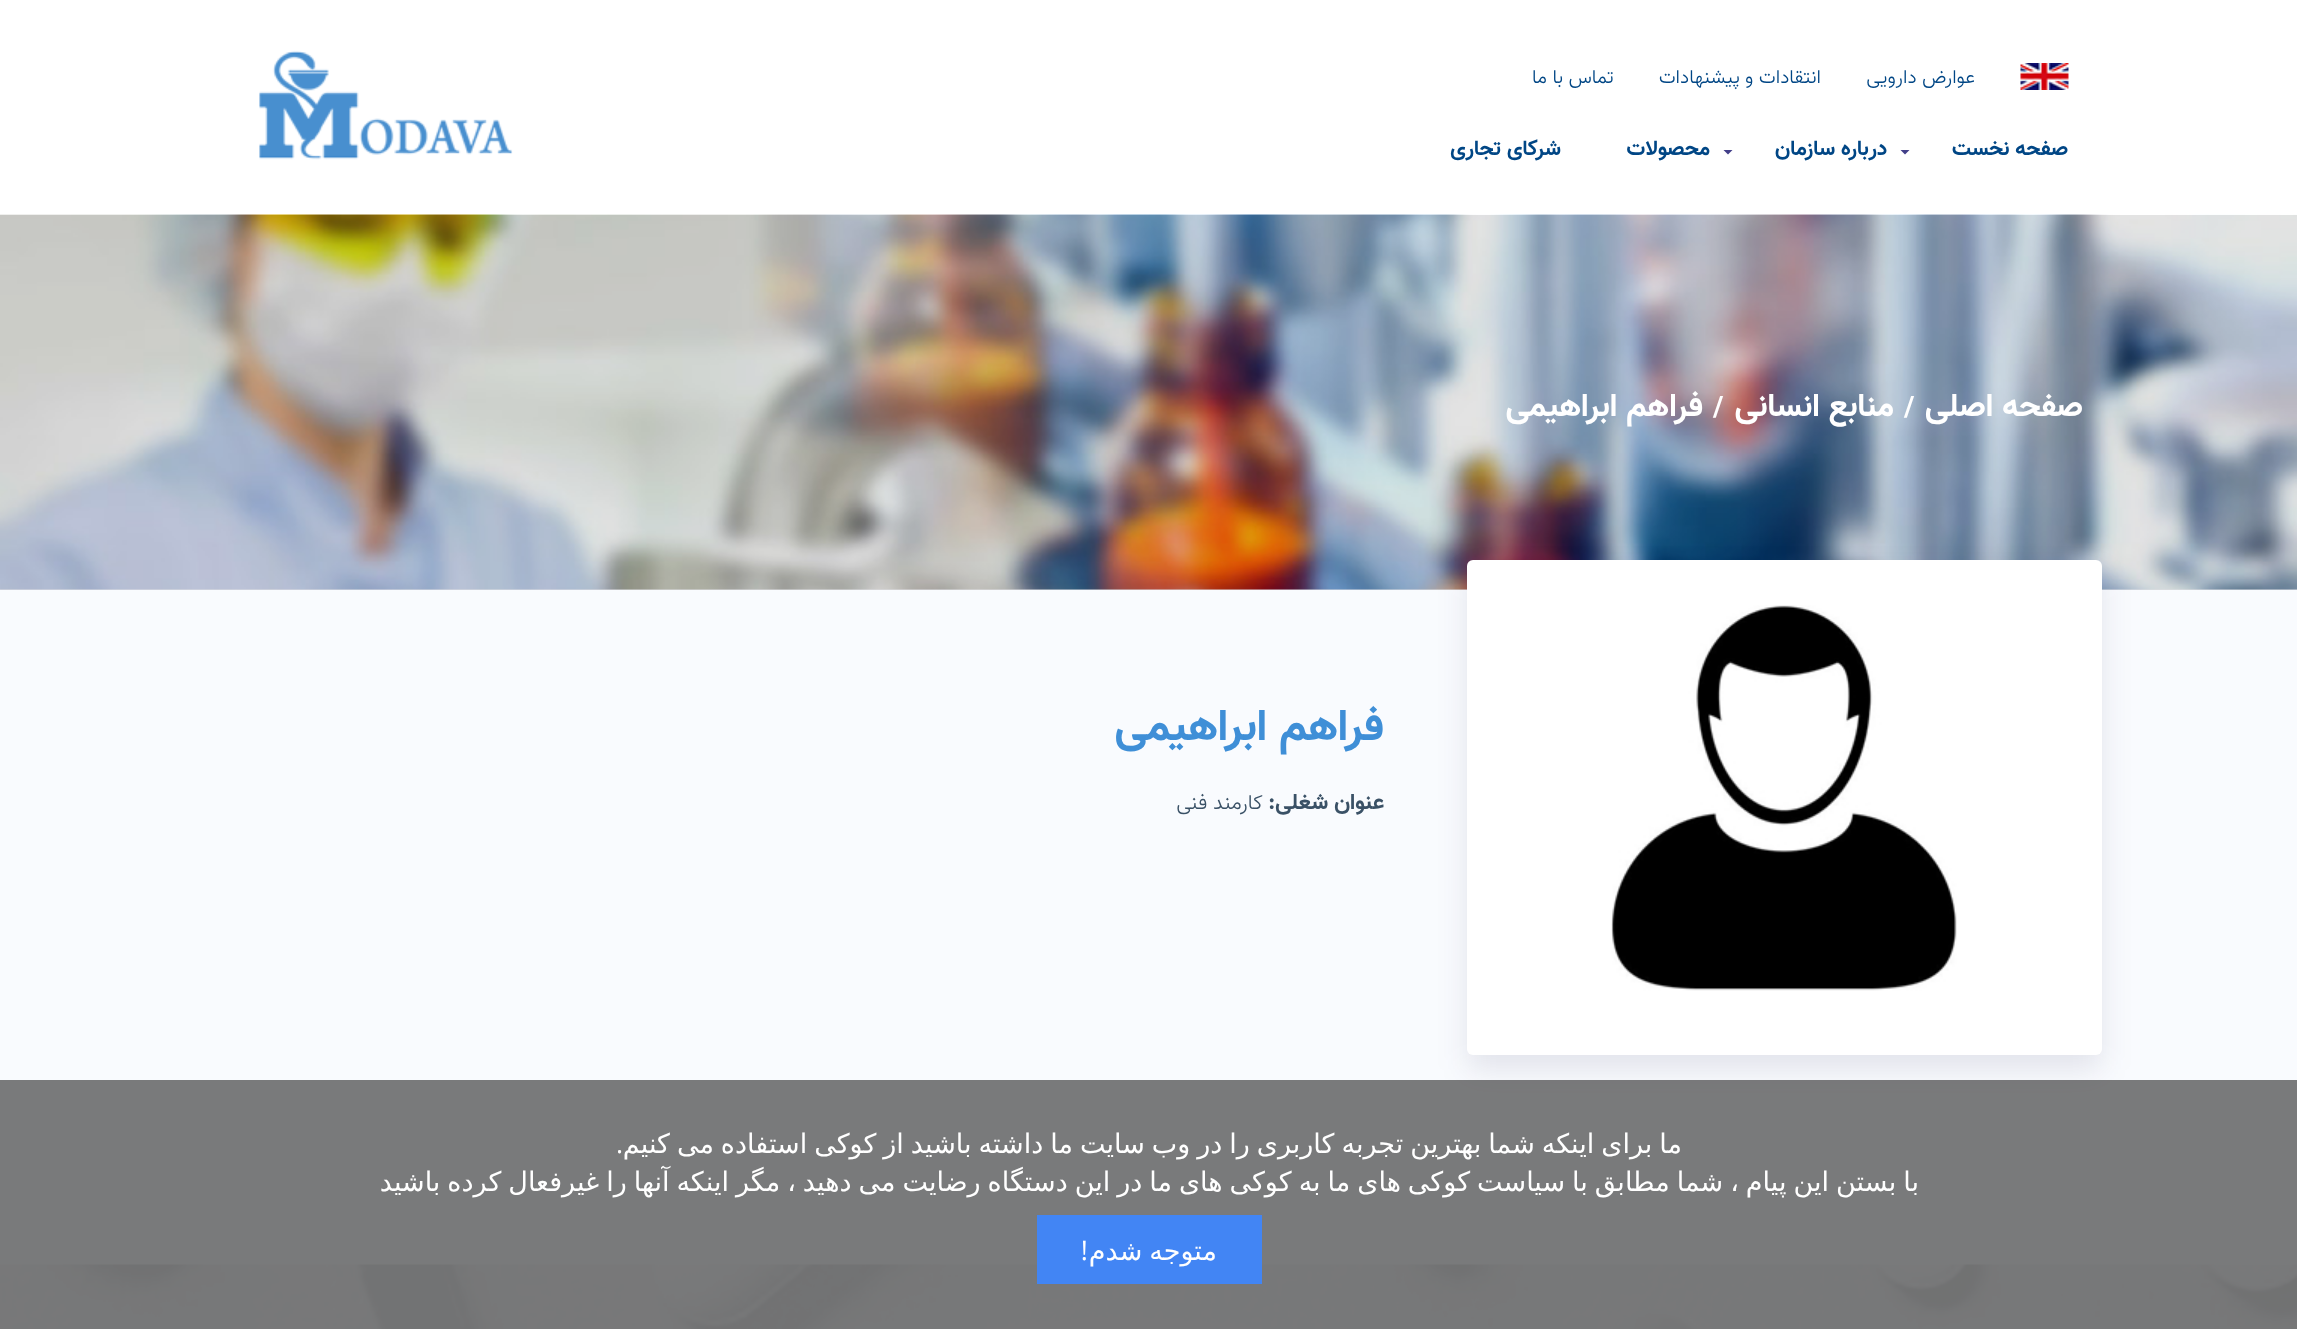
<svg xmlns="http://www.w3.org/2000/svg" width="2297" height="1329">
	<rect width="100%" height="100%" fill="#F9FBFE" />
	<rect x="0" y="589" width="2297" height="1" fill="#DEDFE2" />
	<rect x="0" y="0" width="2297" height="215" fill="#FFFFFF" />
	<image x="2020" y="63" width="49" height="27" href="assets/img1.png" />
	<g font-family="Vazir" font-size="19.5" font-weight="300" direction="rtl" fill="#004685">
		<text x="1975" y="83">عوارض دارویی</text>
		<text x="1821" y="83">انتقادات و پیشنهادات</text>
		<text x="1614" y="83">تماس با ما</text>
	</g>
	<text x="2068" y="155" font-family="Vazir" font-size="21.5" font-weight="700" direction="rtl" fill="#004685">صفحه نخست</text>
	<path d="M1900.5 150H1909.5L1905 154.5Z" fill="#423F89" />
	<text x="1887" y="155" font-family="Vazir" font-size="21.5" font-weight="700" direction="rtl" fill="#004685">درباره سازمان</text>
	<path d="M1723.5 150H1732.5L1728 154.5Z" fill="#423F89" />
	<g font-family="Vazir" font-size="21.5" font-weight="700" direction="rtl" fill="#004685">
		<text x="1710" y="155">محصولات</text>
		<text x="1561" y="155">شرکای تجاری</text>
	</g>
	<image x="259" y="50" width="254" height="110" href="assets/img2.png" />
	<image x="0" y="214" width="2297" height="376" href="assets/img3.png" />
	<text x="2083" y="416" font-family="Vazir" font-size="33" font-weight="700" direction="rtl" fill="#FFFFFF">صفحه اصلی</text>
	<text x="1904" y="416" font-family="Vazir" font-size="28" font-weight="700" fill="#FFFFFF">/</text>
	<text x="1894" y="416" font-family="Vazir" font-size="33" font-weight="700" direction="rtl" fill="#FFFFFF">منابع انسانی</text>
	<text x="1713" y="416" font-family="Vazir" font-size="28" font-weight="700" fill="#FFFFFF">/</text>
	<text x="1703" y="416" font-family="Vazir" font-size="33" font-weight="700" direction="rtl" fill="#FFFFFF">فراهم ابراهیمی</text>
	<rect x="1467" y="575" width="635" height="495" rx="6" fill="#1B1441" fill-opacity="0.1" filter="blur(15px)" />
	<rect x="1467" y="560" width="635" height="495" rx="6" fill="#FFFFFF" />
	<image x="1611" y="605" width="346" height="386" href="assets/img4.png" />
	<text x="1384" y="740" font-family="Vazir" font-size="45" font-weight="700" direction="rtl" fill="#3F8FD7">فراهم ابراهیمی</text>
	<text x="1384" y="809" font-family="Vazir" font-size="22.5" font-weight="700" direction="rtl" fill="#3A5166">عنوان شغلی:</text>
	<text x="1263" y="809" font-family="Vazir" font-size="21" font-weight="300" direction="rtl" fill="#3A5166">کارمند فنی</text>
	<image x="0" y="1264" width="2297" height="65" href="assets/img5.png" />
	<rect x="0" y="1080" width="2297" height="249" fill="#404040" fill-opacity="0.69" />
	<text x="1682" y="1153" word-spacing="-1.6" font-family="DejaVu Sans" font-size="27" direction="rtl" fill="#FFFFFF">ما برای اینکه شما بهترین تجربه کاربری را در وب سایت ما داشته باشید از کوکی استفاده می کنیم</text>
	<text x="623" y="1153" font-family="Open Sans" font-size="27" direction="rtl" fill="#FFFFFF">.</text>
	<text x="1919" y="1191" word-spacing="-1.6" font-family="DejaVu Sans" font-size="27" direction="rtl" fill="#FFFFFF">با بستن این پیام ، شما مطابق با سیاست کوکی های ما به کوکی های ما در این دستگاه رضایت می دهید ، مگر اینکه آنها را غیرفعال کرده باشید</text>
	<rect x="1037" y="1215" width="225" height="69" fill="#4285F4" />
	<text x="1217" y="1260" word-spacing="-1.6" font-family="DejaVu Sans" font-size="27" direction="rtl" fill="#FFFFFF">متوجه شدم</text>
	<text x="1088" y="1260" font-family="Open Sans" font-size="27" direction="rtl" fill="#FFFFFF">!</text>
</svg>
